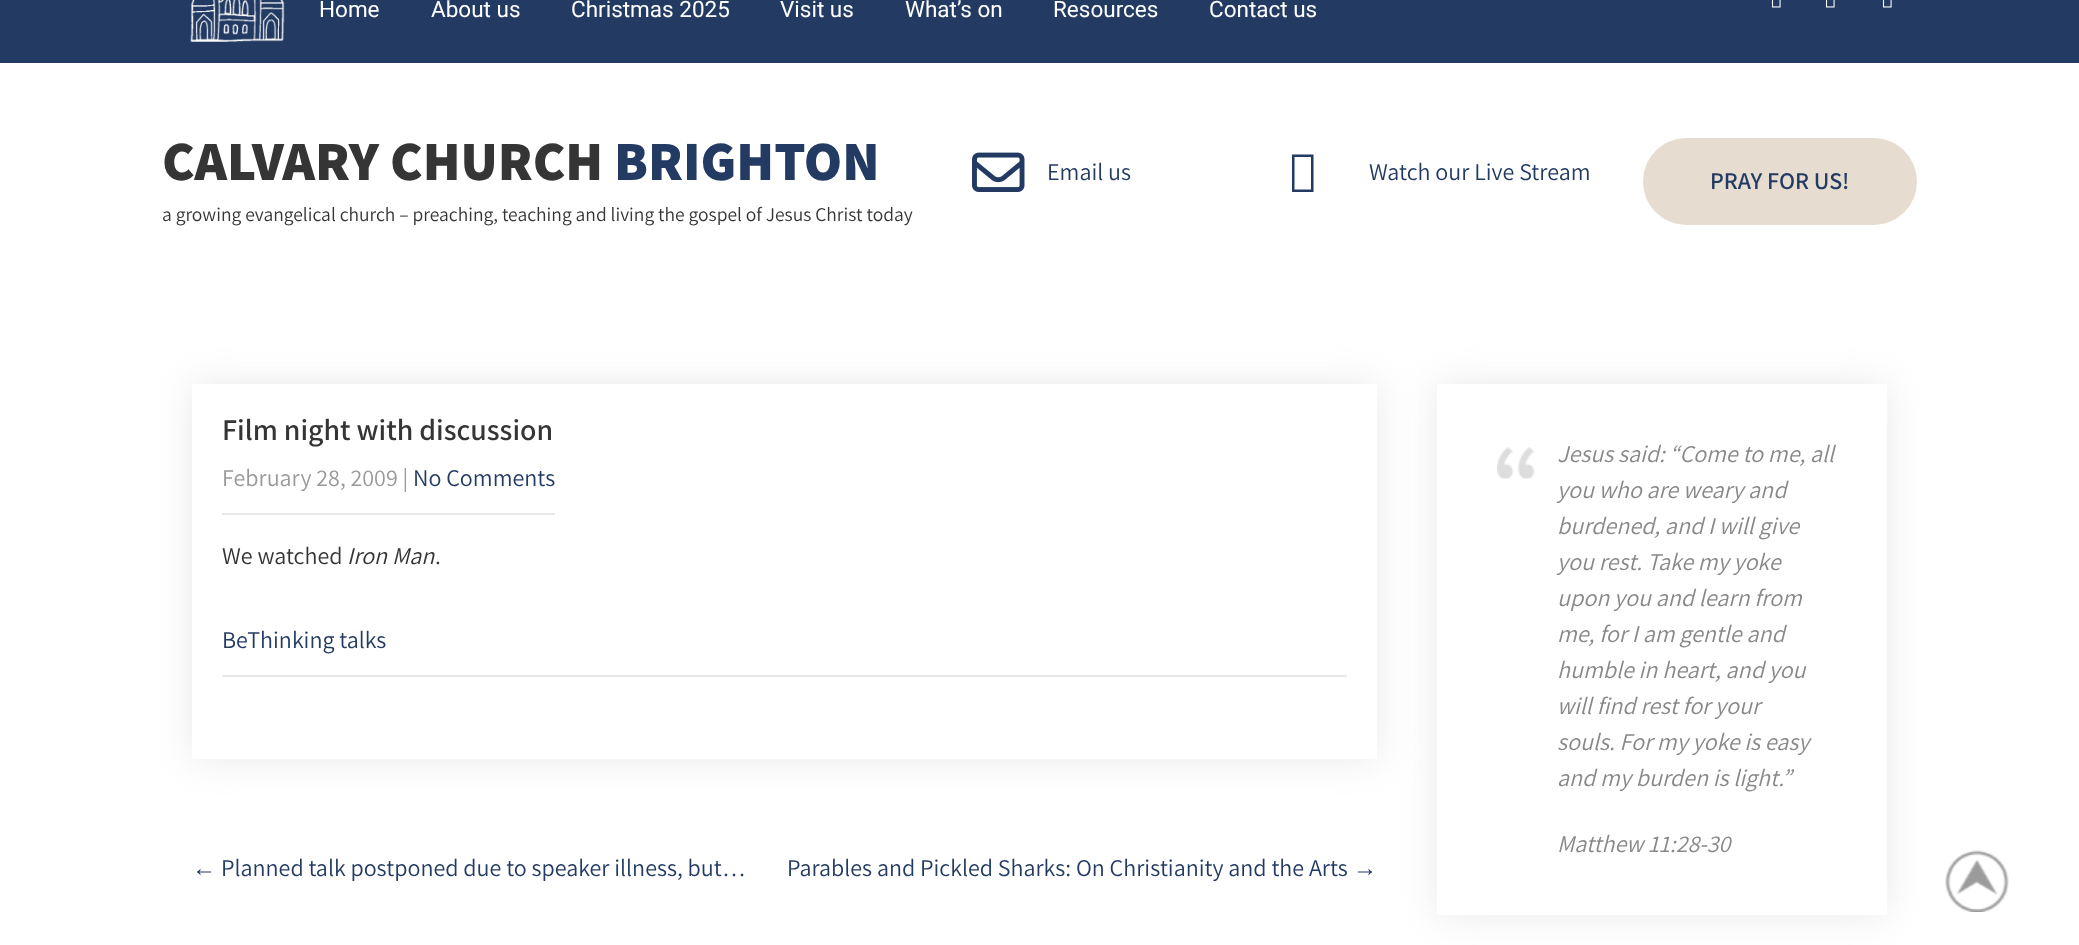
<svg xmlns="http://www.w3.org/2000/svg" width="2079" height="945">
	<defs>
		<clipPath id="clip1"><path d="M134 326H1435V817H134ZM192 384H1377V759H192Z" clip-rule="evenodd" /></clipPath>
		<clipPath id="clip2"><path d="M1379 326H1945V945H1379ZM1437 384H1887V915H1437Z" clip-rule="evenodd" /></clipPath>
	</defs>
	<rect width="100%" height="100%" fill="#FFFFFF" />
	<rect x="0" y="0" width="2079" height="63" fill="#233B63" />
	<image x="190" y="0" width="95" height="42" href="assets/img1.png" />
	<g font-family="Roboto" font-size="22.5" fill="#FFFFFF">
		<text x="319" y="17">Home</text>
		<text x="431" y="17">About us</text>
		<text x="571" y="17">Christmas 2025</text>
		<text x="780" y="17">Visit us</text>
		<text x="905" y="17">What’s on</text>
		<text x="1053" y="17">Resources</text>
		<text x="1209" y="17">Contact us</text>
	</g>
	<image x="1771" y="0" width="10" height="8" href="assets/img2.png" />
	<image x="1825" y="0" width="10" height="8" href="assets/img2.png" />
	<image x="1882" y="0" width="10" height="8" href="assets/img2.png" />
	<text x="162" y="180" font-family="Assistant" font-size="55.5" font-weight="800" fill="#353535">CALVARY CHURCH</text>
	<text x="614" y="180" font-family="Assistant" font-size="55.5" font-weight="800" fill="#233B63">BRIGHTON</text>
	<text x="162" y="221" font-family="Assistant" font-size="19.5" font-weight="200" fill="#353535">a growing evangelical church – preaching, teaching and living the gospel of Jesus Christ today</text>
	<image x="972" y="152" width="53" height="40" href="assets/img3.png" />
	<text x="1047" y="180" font-family="Assistant" font-size="24" font-weight="200" fill="#233B63">Email us</text>
	<path d="M1292 192V154.5H1313.5V192ZM1294.5 189.5H1311V157H1294.5Z" fill="#233B63" />
	<text x="1369" y="180" font-family="Assistant" font-size="24" font-weight="200" fill="#233B63">Watch our Live Stream</text>
	<rect x="1643" y="138" width="274" height="87" rx="43.5" fill="#E6DDD0" />
	<text x="1710" y="189" font-family="Assistant" font-size="24" font-weight="600" fill="#233B63">PRAY FOR US!</text>
	<g clip-path="url(#clip1)">
		<rect x="192" y="384" width="1185" height="375" fill="#E9E9E9" filter="blur(19px)" />
	</g>
	<text x="222" y="440" font-family="Assistant" font-size="30" font-weight="600" fill="#353535">Film night with discussion</text>
	<rect x="222" y="513" width="333" height="2" fill="#E8E8E8" />
	<text x="222" y="486" font-family="Assistant" font-size="24" font-weight="200" fill="#999999">February 28, 2009 |</text>
	<text x="413" y="486" font-family="Assistant" font-size="24" font-weight="200" fill="#233B63">No Comments</text>
	<text x="222" y="564" font-family="Assistant" font-size="24" font-weight="200" fill="#353535">We watched</text>
	<text x="347" y="564" font-family="Assistant" font-size="24" font-weight="200" font-style="italic" fill="#353535">Iron Man</text>
	<text x="435" y="564" font-family="Assistant" font-size="24" font-weight="200" fill="#353535">.</text>
	<rect x="222" y="675" width="1125" height="2" fill="#E8E8E8" />
	<text x="222" y="648" font-family="Assistant" font-size="24" font-weight="200" fill="#233B63">BeThinking talks</text>
	<text x="192" y="876" font-family="Liberation Serif" font-size="24" fill="#233B63">←</text>
	<g font-family="Assistant" font-size="24" font-weight="200" fill="#233B63">
		<text x="221" y="876">Planned talk postponed due to speaker illness, but…</text>
		<text x="787" y="876">Parables and Pickled Sharks: On Christianity and the Arts</text>
	</g>
	<text x="1353" y="876" font-family="Liberation Serif" font-size="24" fill="#233B63">→</text>
	<g clip-path="url(#clip2)">
		<rect x="1437" y="384" width="450" height="531" fill="#E9E9E9" filter="blur(19px)" />
	</g>
	<image x="1497" y="447" width="38" height="32" href="assets/img4.png" />
	<g font-family="Assistant" font-size="24" font-weight="200" font-style="italic" fill="#888888">
		<text x="1557" y="462">Jesus said: “Come to me, all</text>
		<text x="1557" y="498">you who are weary and</text>
		<text x="1557" y="534">burdened, and I will give</text>
		<text x="1557" y="570">you rest. Take my yoke</text>
		<text x="1557" y="606">upon you and learn from</text>
		<text x="1557" y="642">me, for I am gentle and</text>
		<text x="1557" y="678">humble in heart, and you</text>
		<text x="1557" y="714">will find rest for your</text>
		<text x="1557" y="750">souls. For my yoke is easy</text>
		<text x="1557" y="786">and my burden is light.”</text>
		<text x="1557" y="852">Matthew 11:28-30</text>
	</g>
	<image x="1945" y="850" width="64" height="62" href="assets/img5.png" />
</svg>
